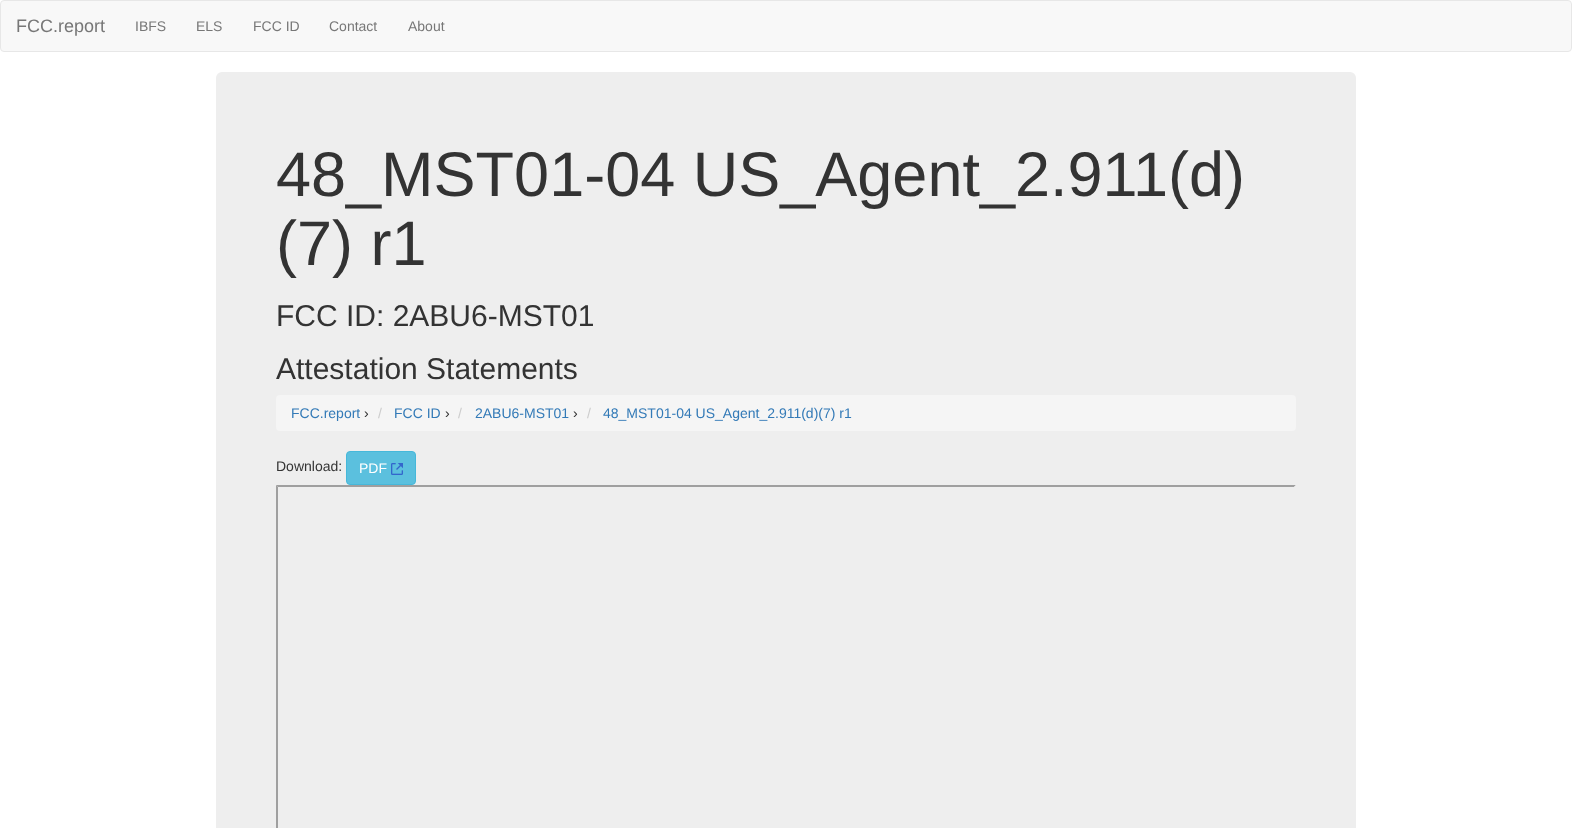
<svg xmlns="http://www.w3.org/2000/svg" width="1572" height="828">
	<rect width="100%" height="100%" fill="#FFFFFF" />
	<rect x="0.5" y="0.5" width="1571" height="51" rx="3.5" fill="#F8F8F8" stroke="#E7E7E7" />
	<text x="16" y="32" font-family="Liberation Sans" font-size="18" fill="#777777">FCC.report</text>
	<g font-family="Liberation Sans" font-size="14" fill="#777777">
		<text x="135" y="31">IBFS</text>
		<text x="196" y="31">ELS</text>
		<text x="253" y="31">FCC ID</text>
		<text x="329" y="31">Contact</text>
		<text x="408" y="31">About</text>
	</g>
	<rect x="216" y="72" width="1140" height="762" rx="6" fill="#EEEEEE" />
	<g font-family="Liberation Sans" font-size="63" fill="#333333">
		<text x="276" y="196">48_MST01-04 US_Agent_2.911(d)</text>
		<text x="276" y="265">(7) r1</text>
	</g>
	<g font-family="Liberation Sans" font-size="30" fill="#333333">
		<text x="276" y="326">FCC ID: 2ABU6-MST01</text>
		<text x="276" y="379">Attestation Statements</text>
	</g>
	<rect x="276" y="395" width="1020" height="36" rx="4" fill="#F5F5F5" />
	<text x="291" y="418" font-family="Liberation Sans" font-size="14" fill="#337AB7">FCC.report</text>
	<text x="364" y="418" font-family="Liberation Sans" font-size="14" fill="#333333">›</text>
	<text x="378" y="418" font-family="Liberation Sans" font-size="14" fill="#CCCCCC">/</text>
	<text x="394" y="418" font-family="Liberation Sans" font-size="14" fill="#337AB7">FCC ID</text>
	<text x="445" y="418" font-family="Liberation Sans" font-size="14" fill="#333333">›</text>
	<text x="458" y="418" font-family="Liberation Sans" font-size="14" fill="#CCCCCC">/</text>
	<text x="475" y="418" font-family="Liberation Sans" font-size="14" fill="#337AB7">2ABU6-MST01</text>
	<text x="573" y="418" font-family="Liberation Sans" font-size="14" fill="#333333">›</text>
	<text x="587" y="418" font-family="Liberation Sans" font-size="14" fill="#CCCCCC">/</text>
	<text x="603" y="418" font-family="Liberation Sans" font-size="14" fill="#337AB7">48_MST01-04 US_Agent_2.911(d)(7) r1</text>
	<text x="276" y="471" font-family="Liberation Sans" font-size="14" fill="#333333">Download:</text>
	<rect x="346.5" y="451.5" width="69" height="33" rx="3.5" fill="#5BC0DE" stroke="#46B8DA" />
	<text x="359" y="473" font-family="Liberation Sans" font-size="14" fill="#FFFFFF">PDF</text>
	<image x="391" y="463" width="12" height="12" href="assets/img1.png" />
	<path d="M276 485H1296L1294 487H278Z" fill="#9F9F9F" />
	<path d="M276 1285V485L278 487V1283Z" fill="#9F9F9F" />
	<path d="M1296 485V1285L1294 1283V487Z" fill="#EEEEEE" />
</svg>
